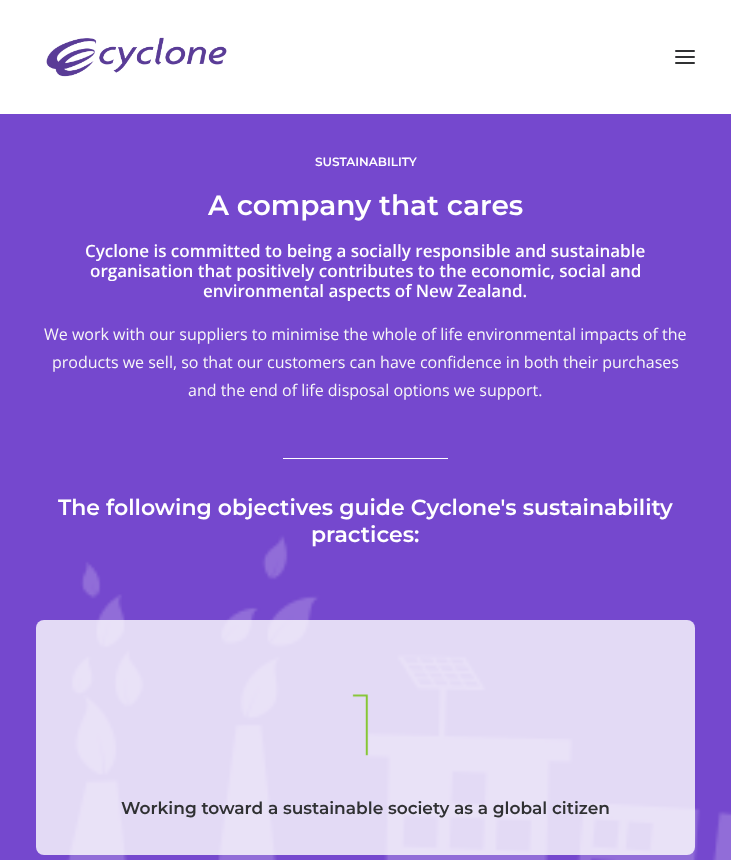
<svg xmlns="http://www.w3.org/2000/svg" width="731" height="860">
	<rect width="100%" height="100%" fill="#7548CE" />
	<rect x="0" y="0" width="731" height="114" fill="#FFFFFF" />
	<image x="46" y="37" width="181" height="40" href="assets/img1.png" />
	<rect x="675" y="56" width="20" height="2" rx="1" fill="#303133" />
	<rect x="675" y="50" width="20" height="2" rx="1" fill="#303133" />
	<rect x="675" y="62" width="20" height="2" rx="1" fill="#303133" />
	<text x="315" y="166" font-family="Montserrat" font-size="12" font-weight="600" fill="#FFFFFF">SUSTAINABILITY</text>
	<text x="208" y="215" font-family="Montserrat" font-size="28" font-weight="600" fill="#FFFFFF">A company that cares</text>
	<g font-family="Open Sans" font-size="17" font-weight="600" fill="#FFFFFF">
		<text x="85" y="257">Cyclone is committed to being a socially responsible and sustainable</text>
		<text x="90" y="277">organisation that positively contributes to the economic, social and</text>
		<text x="203" y="297">environmental aspects of New Zealand.</text>
	</g>
	<g font-family="Open Sans" font-size="16" fill="#F7F7F7">
		<text x="44" y="340">We work with our suppliers to minimise the whole of life environmental impacts of the</text>
		<text x="52" y="368">products we sell, so that our customers can have confidence in both their purchases</text>
		<text x="188" y="396">and the end of life disposal options we support.</text>
	</g>
	<rect x="283" y="458" width="165" height="1" fill="#FFFFFF" />
	<text x="58" y="515" font-family="Montserrat" font-size="22" font-weight="600" fill="#FFFFFF">The following objectives guide Cyclone's sustainability</text>
	<image x="66" y="534" width="665" height="326" href="assets/img3.png" />
	<text x="311" y="542" font-family="Montserrat" font-size="22" font-weight="600" fill="#FFFFFF">practices:</text>
	<rect x="36" y="620" width="659" height="235" rx="8" fill="#FFFFFF" fill-opacity="0.8" />
	<image x="352" y="694" width="17" height="62" href="assets/img2.png" />
	<text x="121" y="814" font-family="Montserrat" font-size="17" font-weight="600" fill="#303133">Working toward a sustainable society as a global citizen</text>
</svg>
